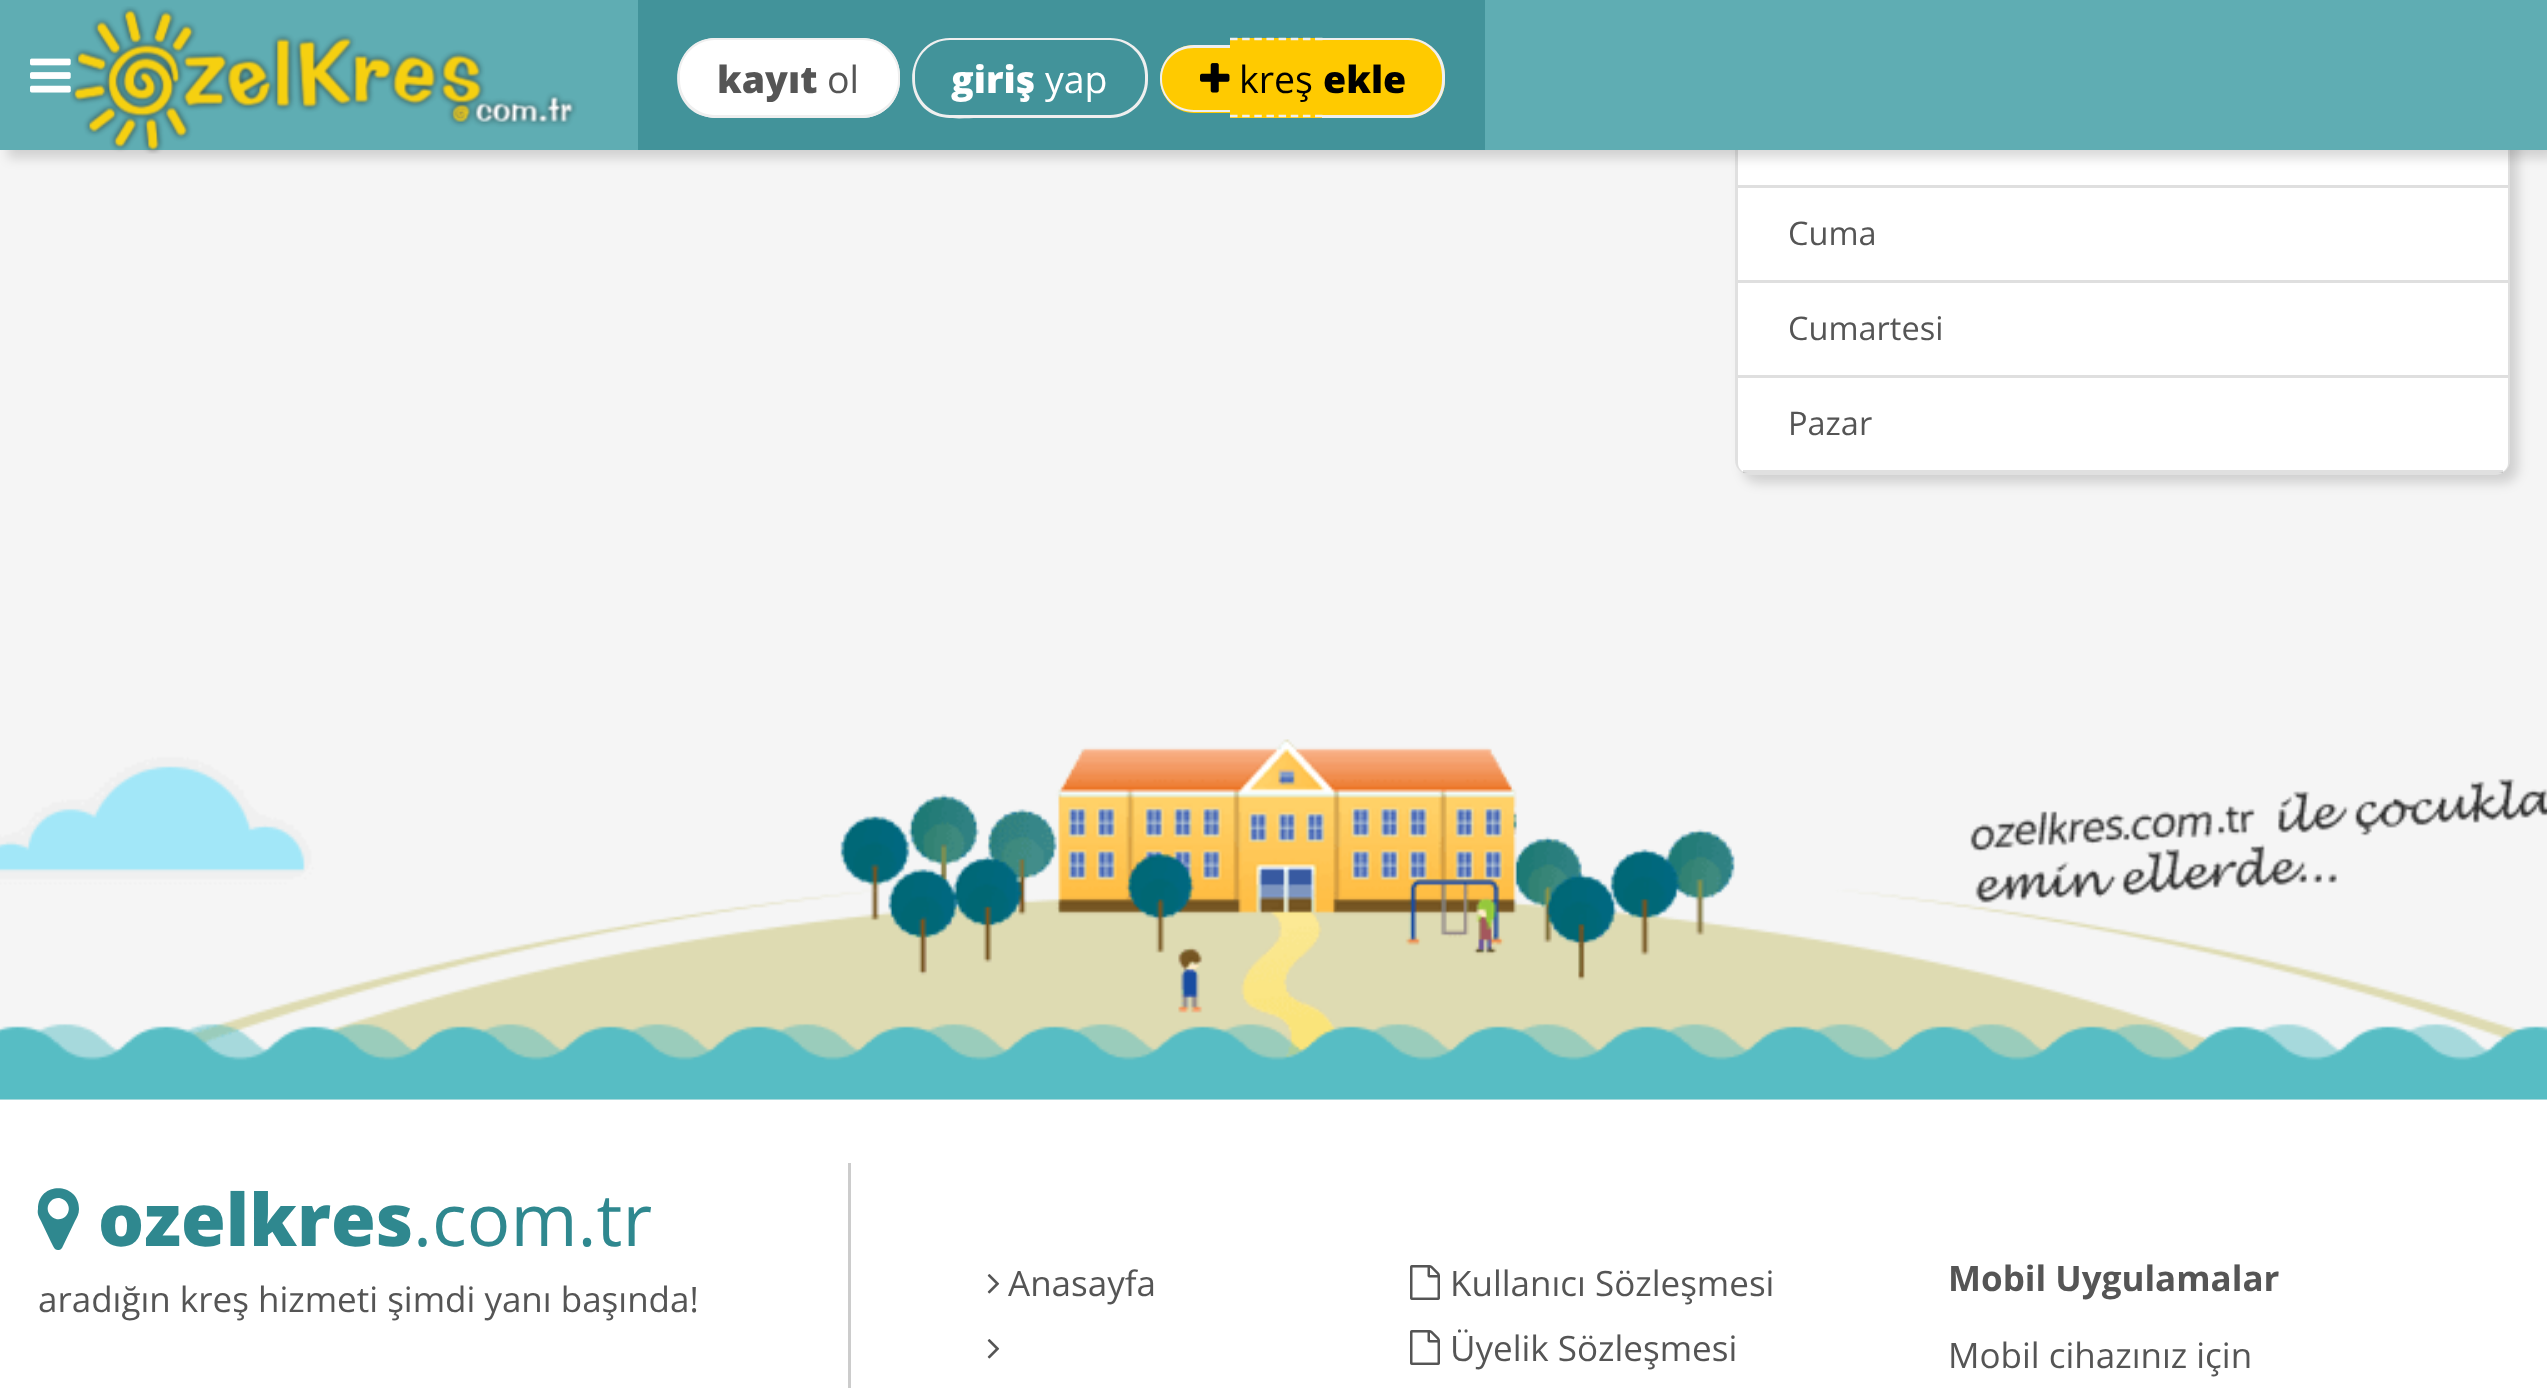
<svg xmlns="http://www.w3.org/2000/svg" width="2547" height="1388">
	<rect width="100%" height="100%" fill="#F5F5F5" />
	<rect x="1743" y="-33" width="775" height="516" rx="15" fill="#000000" fill-opacity="0.15" filter="blur(6px)" />
	<rect x="1735" y="-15" width="775" height="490" rx="15" fill="#FFFFFF" />
	<rect x="1736.5" y="-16.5" width="772" height="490" rx="13.5" fill="none" stroke="#000000" stroke-opacity="0.12" stroke-width="3" />
	<rect x="2507" y="150" width="1" height="35" fill="#FFFFFF" />
	<rect x="8" y="8" width="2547" height="150" fill="#000000" fill-opacity="0.15" filter="blur(6px)" />
	<rect x="0" y="0" width="2547" height="150" fill="#5FADB3" />
	<image x="70" y="6" width="507" height="148" href="assets/img2.png" />
	<image x="30" y="58" width="41" height="35" href="assets/img1.png" />
	<rect x="638" y="0" width="847" height="150" fill="#42939A" />
	<path d="M716 38H818V118H716C695 118 678 101 678 80V76C678 55 695 38 716 38Z" fill="#FFFFFF" />
	<path d="M715 38H818V118H732C722 118 710 119 700 115C663 99 673 38 715 38ZM715 40H818V115H715C696 115 680 99 680 80V75C680 56 696 40 715 40Z" fill="#EFEFEF" fill-rule="evenodd" />
	<text x="717" y="93" font-family="Open Sans" font-size="37.5" font-weight="800" fill="#555555">kayıt</text>
	<path d="M818 38H862C883 38 900 55 900 76V80C900 101 883 118 862 118H818Z" fill="#FFFFFF" />
	<path d="M818 38H862C883 38 900 54 900 75V80C900 101 883 118 862 118H818ZM818 40H862C882 40 898 56 898 75V80C898 99 882 115 862 115H818Z" fill="#EFEFEF" fill-rule="evenodd" />
	<text x="827" y="93" font-family="Open Sans" font-size="37.5" fill="#555555">ol</text>
	<path d="M950 38H1035V118H978C966 118 947 120 935 115C898 99 908 38 950 38ZM950 40H1035V115H950C931 115 915 99 915 80V75C915 56 931 40 950 40Z" fill="#EFEFEF" fill-rule="evenodd" />
	<text x="951" y="93" font-family="Open Sans" font-size="37.5" font-weight="800" fill="#FFFFFF">giriş</text>
	<path d="M1035 38H1110C1131 38 1148 54 1148 75V80C1148 101 1131 118 1110 118H1035ZM1035 40H1110C1129 40 1145 56 1145 75V80C1145 99 1129 115 1110 115H1035Z" fill="#EFEFEF" fill-rule="evenodd" />
	<text x="1045" y="93" font-family="Open Sans" font-size="37.5" fill="#FFFFFF">yap</text>
	<path d="M1194 45H1230V113H1194C1175 113 1160 98 1160 79C1160 60 1175 45 1194 45Z" fill="#FFCA00" />
	<path d="M1194 45H1230V112H1194C1175 112 1160 97 1160 79C1160 60 1175 45 1194 45ZM1194 48H1230V110H1194C1176 110 1162 96 1162 79C1162 61 1176 48 1194 48Z" fill="#EFEFEF" fill-rule="evenodd" />
	<rect x="1230" y="38" width="93" height="80" fill="#FFCA00" />
	<path d="M1230 39H1322.5" fill="none" stroke="#EFEFEF" stroke-width="2.5" stroke-dasharray="7.5 4.65" />
	<path d="M1230 116H1322.5" fill="none" stroke="#EFEFEF" stroke-width="2.5" stroke-dasharray="7.5 4.65" />
	<path d="M1323 38H1407C1428 38 1445 55 1445 76V80C1445 101 1428 118 1407 118H1323Z" fill="#FFCA00" />
	<path d="M1322 38H1408C1428 38 1445 54 1445 75V80C1445 101 1428 118 1408 118H1322ZM1322 40H1408C1427 40 1442 56 1442 75V80C1442 99 1427 115 1408 115H1322Z" fill="#EFEFEF" fill-rule="evenodd" />
	<image x="1200" y="63" width="30" height="30" href="assets/img3.png" />
	<text x="1239" y="93" font-family="Open Sans" font-size="37.5" fill="#000000">kreş</text>
	<text x="1323" y="93" font-family="Open Sans" font-size="37.5" font-weight="800" fill="#000000">ekle</text>
	<rect x="1738" y="185" width="770" height="3" fill="#DFDFDF" />
	<rect x="2507" y="188" width="1" height="92" fill="#FFFFFF" />
	<rect x="1738" y="280" width="770" height="3" fill="#DFDFDF" />
	<text x="1788" y="245" font-family="Open Sans" font-size="32.5" fill="#555555">Cuma</text>
	<rect x="2507" y="283" width="1" height="92" fill="#FFFFFF" />
	<rect x="1738" y="375" width="770" height="3" fill="#DFDFDF" />
	<text x="1788" y="340" font-family="Open Sans" font-size="32.5" fill="#555555">Cumartesi</text>
	<path d="M1738 378H2508V463C2508 468.5 2503.5 473 2498 473H1748C1742.5 473 1738 468.5 1738 463Z" fill="#FFFFFF" />
	<rect x="1743" y="470" width="760" height="3" fill="#000000" fill-opacity="0.12" />
	<text x="1788" y="435" font-family="Open Sans" font-size="32.5" fill="#555555">Pazar</text>
	<image x="0" y="739" width="2547" height="361" href="assets/img4.png" />
	<rect x="0" y="1100" width="2547" height="288" fill="#FFFFFF" />
	<rect x="848" y="1163" width="3" height="225" fill="#CCCCCC" />
	<path d="M66 1216C75 1206 61 1192 51 1201C41 1211 56 1226 66 1216ZM79 1209C79 1214 77 1217 75 1221L62 1248C61 1249 60 1250 59 1250C54 1251 53 1245 51 1242L41 1221C39 1217 37 1214 38 1209C38 1181 79 1182 79 1209Z" fill="#2F888F" />
	<text x="98" y="1246" font-family="Open Sans" font-size="72.5" font-weight="800" fill="#2F888F">ozelkres</text>
	<text x="413" y="1246" font-family="Open Sans" font-size="72.5" fill="#2F888F">.com.tr</text>
	<text x="38" y="1312" font-family="Open Sans" font-size="35" fill="#555555">aradığın kreş hizmeti şimdi yanı başında!</text>
	<image x="987" y="1274" width="13" height="20" href="assets/img5.png" />
	<text x="1008" y="1296" font-family="Open Sans" font-size="35" fill="#555555">Anasayfa</text>
	<image x="987" y="1339" width="13" height="20" href="assets/img5.png" />
	<image x="1410" y="1265" width="30" height="35" href="assets/img6.png" />
	<text x="1450" y="1296" font-family="Open Sans" font-size="35" fill="#555555">Kullanıcı Sözleşmesi</text>
	<image x="1410" y="1330" width="30" height="35" href="assets/img6.png" />
	<text x="1450" y="1361" font-family="Open Sans" font-size="35" fill="#555555">Üyelik Sözleşmesi</text>
	<text x="1948" y="1291" font-family="Open Sans" font-size="35" font-weight="700" fill="#555555">Mobil Uygulamalar</text>
	<text x="1948" y="1368" font-family="Open Sans" font-size="35" fill="#555555">Mobil cihazınız için</text>
</svg>
